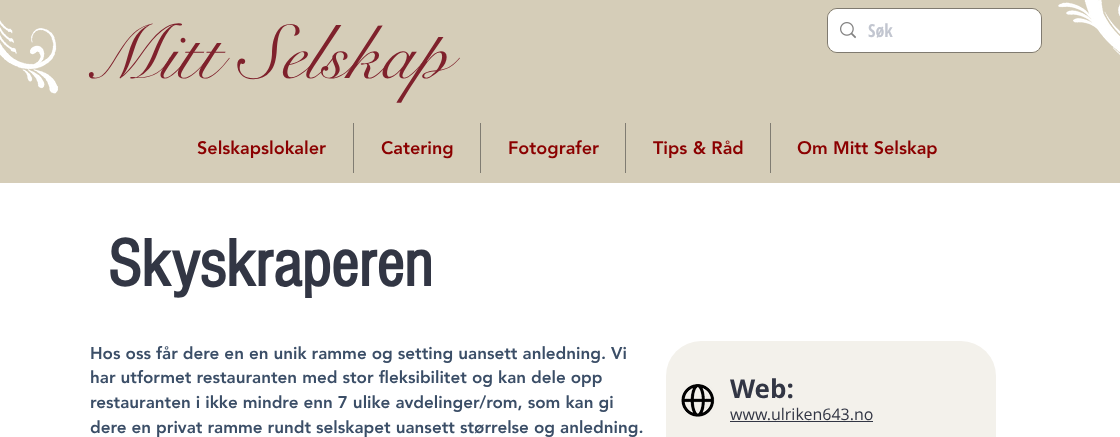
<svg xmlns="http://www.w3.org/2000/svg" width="1120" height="437">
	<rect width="100%" height="100%" fill="#FFFFFF" />
	<rect x="0" y="0" width="1120" height="183" fill="#D5CDB8" />
	<image x="0" y="20" width="58" height="74" href="assets/img1.png" />
	<text x="85" y="78" font-family="'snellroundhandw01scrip'" font-size="76" fill="#7F212C">Mitt Selskap</text>
	<rect x="827.5" y="8.5" width="214" height="44" rx="9.5" fill="none" stroke="#7F7A70" />
	<rect x="828" y="9" width="213" height="43" rx="9" fill="#FFFFFF" />
	<image x="840" y="22" width="16" height="17" href="assets/img2.png" />
	<text x="868" y="37" font-family="Open Sans Condensed" font-size="18" font-weight="700" fill="#C2C6D0">Søk</text>
	<image x="1058" y="0" width="62" height="55" href="assets/img3.png" />
	<text x="197" y="154" font-family="'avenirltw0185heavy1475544'" font-size="18" font-weight="900" fill="#8B0000">Selskapslokaler</text>
	<rect x="353" y="123" width="1" height="50" fill="#807C72" />
	<text x="381" y="154" font-family="'avenirltw0185heavy1475544'" font-size="18" font-weight="900" fill="#8B0000">Catering</text>
	<rect x="480" y="123" width="1" height="50" fill="#807C72" />
	<text x="508" y="154" font-family="'avenirltw0185heavy1475544'" font-size="18" font-weight="900" fill="#8B0000">Fotografer</text>
	<rect x="625" y="123" width="1" height="50" fill="#807C72" />
	<text x="653" y="154" font-family="'avenirltw0185heavy1475544'" font-size="18" font-weight="900" fill="#8B0000">Tips &amp; Råd</text>
	<rect x="770" y="123" width="1" height="50" fill="#807C72" />
	<text x="797" y="154" font-family="'avenirltw0185heavy1475544'" font-size="18" font-weight="900" fill="#8B0000">Om Mitt Selskap</text>
	<text x="108" y="286" font-family="'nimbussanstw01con'" font-size="69" font-weight="700" fill="#323644">Skyskraperen</text>
	<g font-family="'avenirltw0185heavy1475544'" font-size="17" font-weight="900" fill="#3B4E67">
		<text x="90" y="359">Hos oss får dere en en unik ramme og setting uansett anledning. Vi</text>
		<text x="90" y="383">har utformet restauranten med stor fleksibilitet og kan dele opp</text>
		<text x="90" y="408">restauranten i ikke mindre enn 7 ulike avdelinger/rom, som kan gi</text>
		<text x="90" y="433">dere en privat ramme rundt selskapet uansett størrelse og anledning.</text>
	</g>
	<rect x="666" y="341" width="330" height="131" rx="35" fill="#F3F1EB" />
	<image x="681" y="384" width="34" height="33" href="assets/img4.png" />
	<text x="730" y="398" font-family="Open Sans" font-size="26" font-weight="700" fill="#323644">Web:</text>
	<text x="730" y="420" font-family="Open Sans" font-size="16" fill="#323644">www.ulriken643.no</text>
	<rect x="730" y="421" width="143" height="1" fill="#323644" />
</svg>
